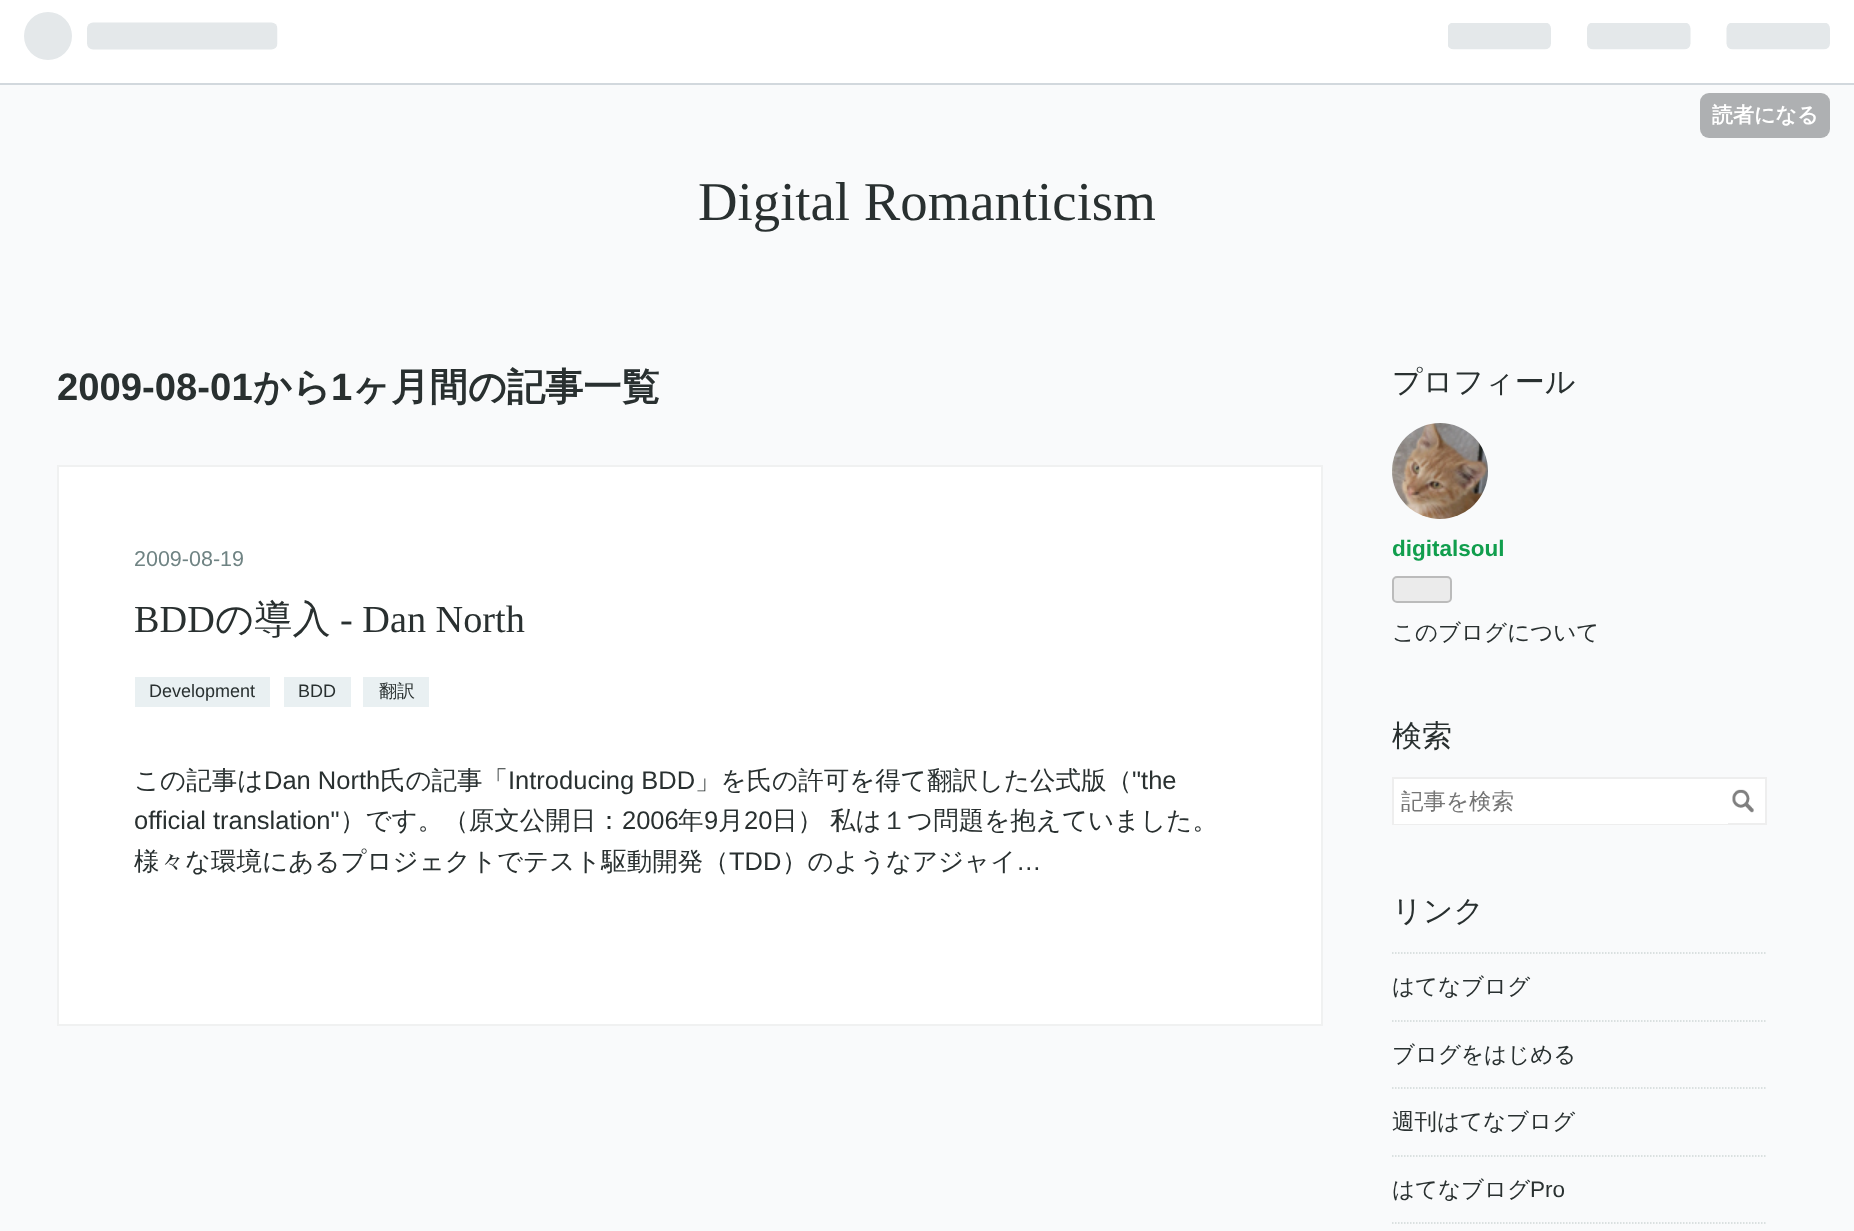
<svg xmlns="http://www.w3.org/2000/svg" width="1854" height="1231">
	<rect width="100%" height="100%" fill="#F9FAFB" />
	<rect x="0" y="0" width="1854" height="83" fill="#FFFFFF" />
	<rect x="0" y="83" width="1854" height="2" fill="#D2D8DD" />
	<image x="24" y="12" width="254" height="48" href="assets/img1.png" />
	<image x="1448" y="23" width="382" height="27" href="assets/img2.png" />
	<rect x="1700" y="93" width="130" height="45" rx="9" fill="#AEB0B2" />
	<text x="1712" y="122" font-family="WenQuanYi Zen Hei" font-size="21" font-weight="700" fill="#FFFFFF">読者になる</text>
	<text x="698" y="220" font-family="Liberation Serif" font-size="54.75" fill="#293030">Digital Romanticism</text>
	<text x="57" y="400" font-family="Liberation Sans" font-size="38.25" font-weight="700" fill="#293030">2009-08-01</text>
	<text x="253" y="400" font-family="WenQuanYi Zen Hei" font-size="38.25" font-weight="700" fill="#293030">から</text>
	<text x="331" y="400" font-family="Liberation Sans" font-size="38.25" font-weight="700" fill="#293030">1</text>
	<text x="352" y="400" font-family="WenQuanYi Zen Hei" font-size="38.25" font-weight="700" fill="#293030">ヶ月間の記事一覧</text>
	<rect x="58" y="466" width="1264" height="559" fill="#FFFFFF" stroke="#F0F1F1" stroke-width="2" />
	<text x="134" y="566" font-family="Liberation Sans" font-size="21.5" fill="#6F8383">2009-08-19</text>
	<text x="134" y="632" font-family="Liberation Serif" font-size="38.25" fill="#293030">BDD</text>
	<text x="215" y="632" font-family="WenQuanYi Zen Hei" font-size="38.25" font-weight="500" fill="#293030">の導入</text>
	<text x="340" y="632" font-family="Liberation Serif" font-size="38.25" fill="#293030">- Dan North</text>
	<rect x="135" y="677" width="135" height="30" fill="#E9F0F2" />
	<text x="149" y="697" font-family="Liberation Sans" font-size="18" fill="#293030">Development</text>
	<rect x="284" y="677" width="67" height="30" fill="#E9F0F2" />
	<text x="298" y="697" font-family="Liberation Sans" font-size="18" fill="#293030">BDD</text>
	<rect x="363" y="677" width="66" height="30" fill="#E9F0F2" />
	<text x="379" y="697" font-family="WenQuanYi Zen Hei" font-size="18" font-weight="500" fill="#293030">翻訳</text>
	<text x="134" y="789" font-family="WenQuanYi Zen Hei" font-size="25.5" font-weight="500" fill="#293030">この記事は</text>
	<text x="264" y="789" font-family="Liberation Sans" font-size="25.5" fill="#293030">Dan North</text>
	<text x="380" y="789" font-family="WenQuanYi Zen Hei" font-size="25.5" font-weight="500" fill="#293030">氏の記事「</text>
	<text x="508" y="789" font-family="Liberation Sans" font-size="25.5" fill="#293030">Introducing BDD</text>
	<text x="695" y="789" font-family="WenQuanYi Zen Hei" font-size="25.5" font-weight="500" fill="#293030">」を氏の許可を得て翻訳した公式版（</text>
	<g font-family="Liberation Sans" font-size="25.5" fill="#293030">
		<text x="1132" y="789">"the</text>
		<text x="134" y="829">official translation"</text>
	</g>
	<text x="340" y="829" font-family="WenQuanYi Zen Hei" font-size="25.5" font-weight="500" fill="#293030">）です。（原文公開日：</text>
	<text x="622" y="829" font-family="Liberation Sans" font-size="25.5" fill="#293030">2006</text>
	<text x="678" y="829" font-family="WenQuanYi Zen Hei" font-size="25.5" font-weight="500" fill="#293030">年</text>
	<text x="704" y="829" font-family="Liberation Sans" font-size="25.5" fill="#293030">9</text>
	<text x="718" y="829" font-family="WenQuanYi Zen Hei" font-size="25.5" font-weight="500" fill="#293030">月</text>
	<text x="744" y="829" font-family="Liberation Sans" font-size="25.5" fill="#293030">20</text>
	<g font-family="WenQuanYi Zen Hei" font-size="25.5" font-weight="500" fill="#293030">
		<text x="772" y="829">日）</text>
		<text x="830" y="829">私は１つ問題を抱えていました。</text>
		<text x="134" y="870">様々な環境にあるプロジェクトでテスト駆動開発（</text>
	</g>
	<text x="729" y="870" font-family="Liberation Sans" font-size="25.5" fill="#293030">TDD</text>
	<text x="782" y="870" font-family="WenQuanYi Zen Hei" font-size="25.5" font-weight="500" fill="#293030">）のようなアジャイ</text>
	<text x="1016" y="870" font-family="Liberation Sans" font-size="25.5" fill="#293030">…</text>
	<text x="1392" y="392" font-family="WenQuanYi Zen Hei" font-size="30" font-weight="500" fill="#293030">プロフィール</text>
	<image x="1392" y="423" width="96" height="96" href="assets/img3.png" />
	<text x="1392" y="556" font-family="Liberation Sans" font-size="22.5" font-weight="700" fill="#119E4D">digitalsoul</text>
	<rect x="1393" y="577" width="58" height="25" rx="4" fill="#EBEBEB" stroke="#BBBBBB" stroke-width="2" />
	<text x="1392" y="640" font-family="WenQuanYi Zen Hei" font-size="22.5" font-weight="500" fill="#293030">このブログについて</text>
	<text x="1392" y="746" font-family="WenQuanYi Zen Hei" font-size="30" font-weight="500" fill="#293030">検索</text>
	<rect x="1728" y="779" width="37" height="44" fill="#FFFFFF" />
	<rect x="1393" y="778" width="373" height="46" fill="none" stroke="#EEEEEE" stroke-width="2" />
	<rect x="1394" y="779" width="334" height="45" fill="#FFFFFF" />
	<text x="1401" y="809" font-family="WenQuanYi Zen Hei" font-size="22.5" font-weight="500" fill="#757575">記事を検索</text>
	<image x="1732" y="789" width="22" height="24" href="assets/img4.png" />
	<text x="1392" y="921" font-family="WenQuanYi Zen Hei" font-size="30" font-weight="500" fill="#293030">リンク</text>
	<path d="M1392 953H1767" fill="none" stroke="#CFD8D8" stroke-width="1.5" stroke-dasharray="1.5 1.5" />
	<text x="1392" y="994" font-family="WenQuanYi Zen Hei" font-size="22.5" font-weight="500" fill="#293030">はてなブログ</text>
	<path d="M1392 1021H1767" fill="none" stroke="#CFD8D8" stroke-width="1.5" stroke-dasharray="1.5 1.5" />
	<text x="1392" y="1062" font-family="WenQuanYi Zen Hei" font-size="22.5" font-weight="500" fill="#293030">ブログをはじめる</text>
	<path d="M1392 1088H1767" fill="none" stroke="#CFD8D8" stroke-width="1.5" stroke-dasharray="1.5 1.5" />
	<text x="1392" y="1129" font-family="WenQuanYi Zen Hei" font-size="22.5" font-weight="500" fill="#293030">週刊はてなブログ</text>
	<path d="M1392 1156H1767" fill="none" stroke="#CFD8D8" stroke-width="1.5" stroke-dasharray="1.5 1.5" />
	<path d="M1392 1223H1767" fill="none" stroke="#CFD8D8" stroke-width="1.5" stroke-dasharray="1.5 1.5" />
	<text x="1392" y="1197" font-family="WenQuanYi Zen Hei" font-size="22.5" font-weight="500" fill="#293030">はてなブログ</text>
	<text x="1530" y="1197" font-family="Liberation Sans" font-size="22.5" fill="#293030">Pro</text>
</svg>
